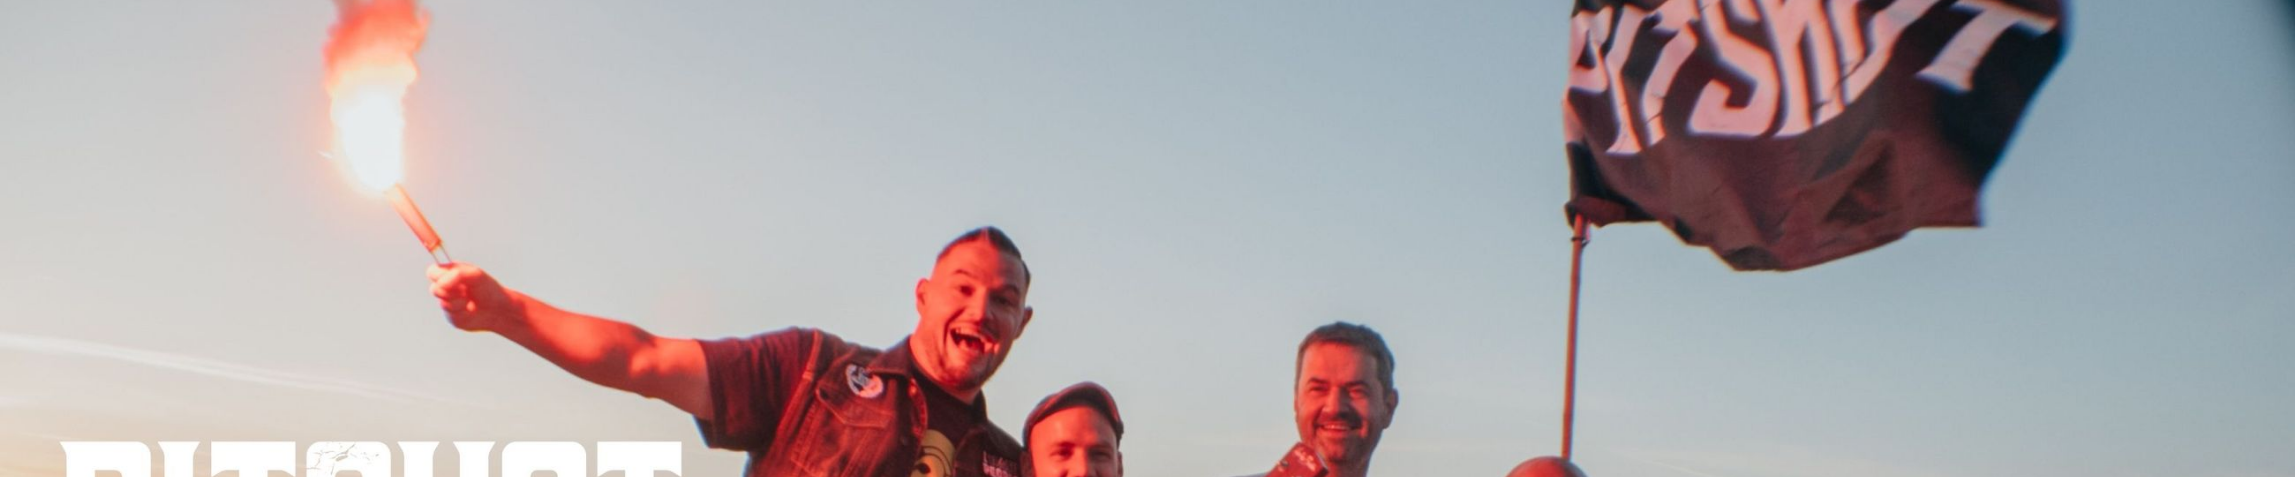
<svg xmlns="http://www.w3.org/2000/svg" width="2295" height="477">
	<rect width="100%" height="100%" fill="#FFFFFF" />
	<image x="0" y="0" width="2295" height="477" href="assets/img1.png" />
</svg>
